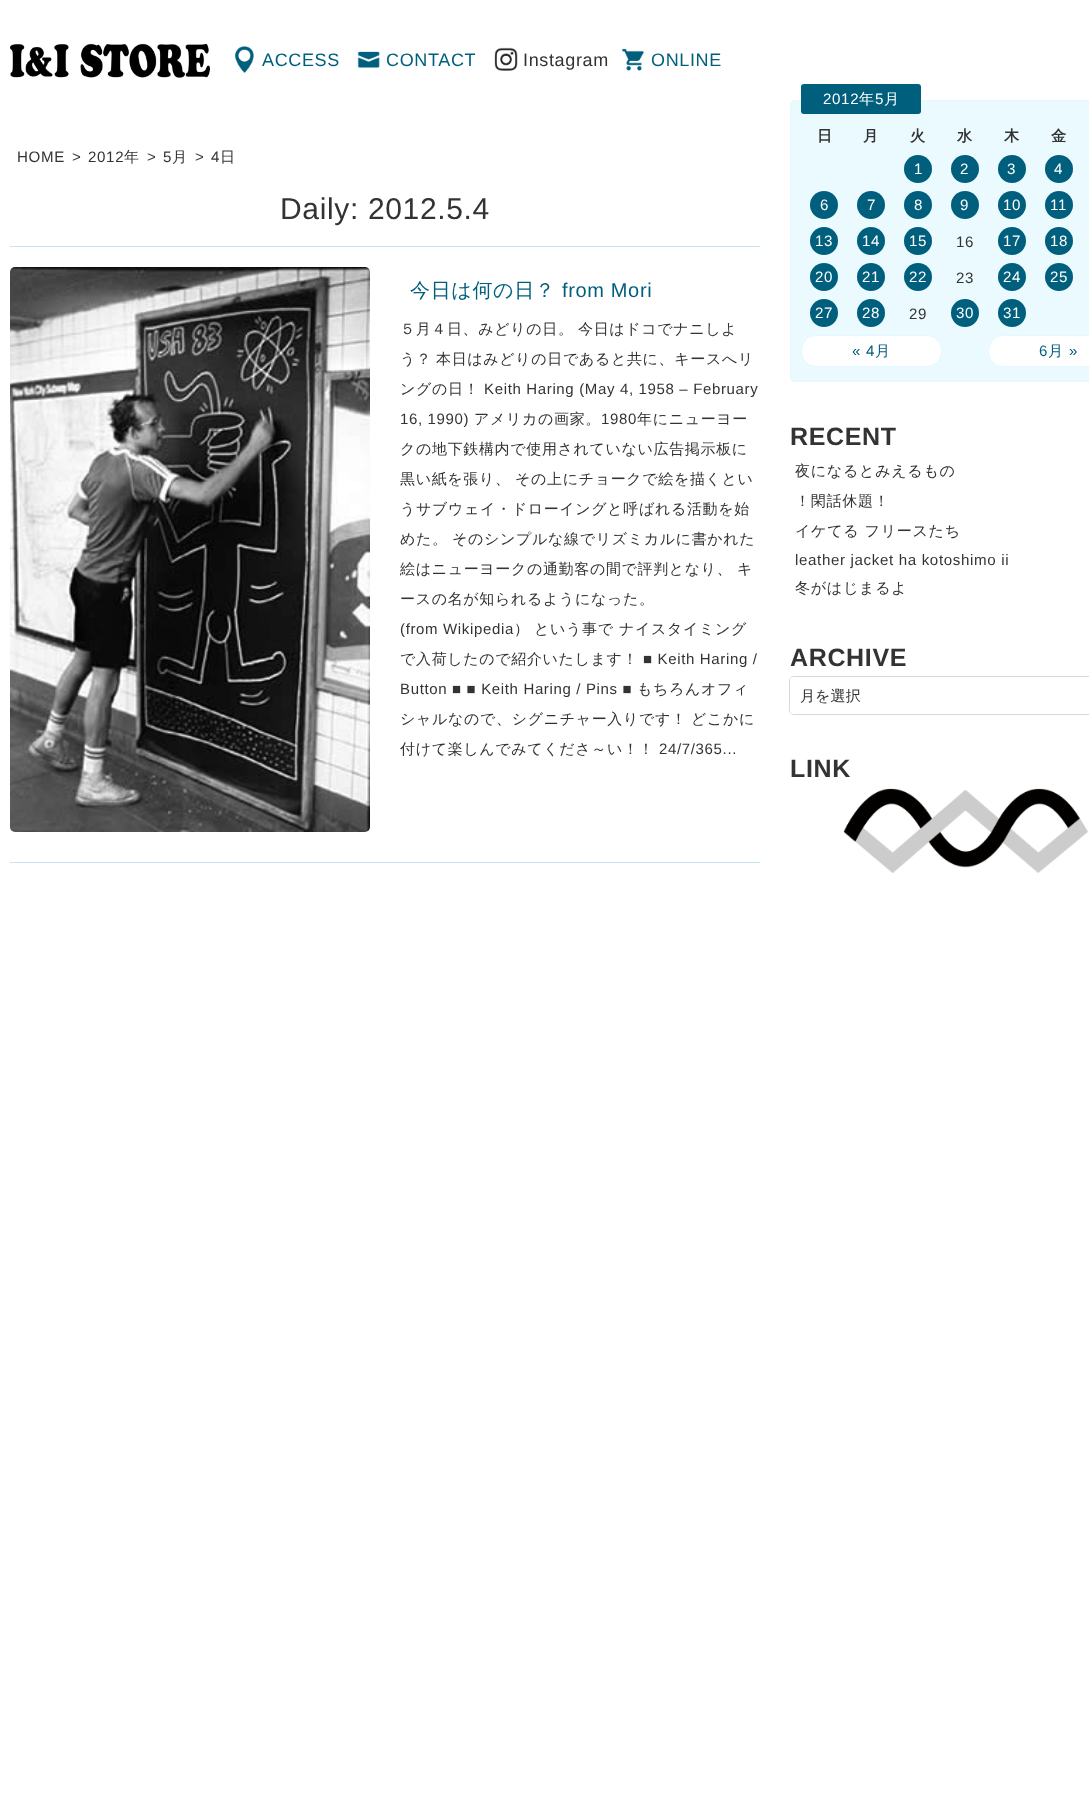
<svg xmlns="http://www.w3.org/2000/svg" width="1089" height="1806">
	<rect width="100%" height="100%" fill="#FFFFFF" />
	<image x="10" y="43" width="200" height="35" href="assets/img1.png" />
	<image x="235" y="46" width="19" height="27" href="assets/img2.png" />
	<text x="262" y="66" font-family="Liberation Sans" font-size="18" letter-spacing="0.65" fill="#005F7D">ACCESS</text>
	<image x="357" y="51" width="23" height="17" href="assets/img3.png" />
	<text x="386" y="66" font-family="Liberation Sans" font-size="18" letter-spacing="0.65" fill="#005F7D">CONTACT</text>
	<image x="494" y="47" width="24" height="24" href="assets/img4.png" />
	<text x="523" y="66" font-family="Liberation Sans" font-size="18" letter-spacing="0.65" fill="#333333">Instagram</text>
	<image x="622" y="48" width="22" height="23" href="assets/img5.png" />
	<text x="651" y="66" font-family="Liberation Sans" font-size="18" letter-spacing="0.65" fill="#005F7D">ONLINE</text>
	<g font-family="Liberation Sans" font-size="15.1" letter-spacing="0.65" fill="#333333">
		<text x="17" y="162">HOME</text>
		<text x="72" y="162">&gt;</text>
		<text x="88" y="162">2012</text>
	</g>
	<text x="124" y="162" font-family="WenQuanYi Zen Hei" font-size="15.1" font-weight="500" letter-spacing="0.65" fill="#333333">年</text>
	<g font-family="Liberation Sans" font-size="15.1" letter-spacing="0.65" fill="#333333">
		<text x="147" y="162">&gt;</text>
		<text x="163" y="162">5</text>
	</g>
	<text x="172" y="162" font-family="WenQuanYi Zen Hei" font-size="15.1" font-weight="500" letter-spacing="0.65" fill="#333333">月</text>
	<g font-family="Liberation Sans" font-size="15.1" letter-spacing="0.65" fill="#333333">
		<text x="195" y="162">&gt;</text>
		<text x="211" y="162">4</text>
	</g>
	<text x="220" y="162" font-family="WenQuanYi Zen Hei" font-size="15.1" font-weight="500" letter-spacing="0.65" fill="#333333">日</text>
	<rect x="10" y="246" width="750" height="1" fill="#C6E4ED" />
	<text x="280" y="219" font-family="Liberation Sans" font-size="30" letter-spacing="0.65" fill="#333333">Daily: 2012.5.4</text>
	<rect x="10" y="862" width="750" height="1" fill="#C6E4ED" />
	<image x="10" y="267" width="360" height="565" href="assets/img6.png" />
	<text x="410" y="297" font-family="WenQuanYi Zen Hei" font-size="20" font-weight="500" letter-spacing="0.65" fill="#005F7D">今日は何の日？</text>
	<text x="562" y="297" font-family="Liberation Sans" font-size="20" letter-spacing="0.65" fill="#005F7D">from Mori</text>
	<g font-family="WenQuanYi Zen Hei" font-size="15" font-weight="500" letter-spacing="0.65" fill="#333333">
		<text x="400" y="334">５月４日、みどりの日。</text>
		<text x="578" y="334">今日はドコでナニしよ</text>
		<text x="400" y="364">う？</text>
		<text x="436" y="364">本日はみどりの日であると共に、キースへリ</text>
		<text x="400" y="394">ングの日！</text>
	</g>
	<g font-family="Liberation Sans" font-size="15" letter-spacing="0.65" fill="#333333">
		<text x="484" y="394">Keith Haring (May 4, 1958 – February</text>
		<text x="400" y="424">16, 1990)</text>
	</g>
	<text x="474" y="424" font-family="WenQuanYi Zen Hei" font-size="15" font-weight="500" letter-spacing="0.65" fill="#333333">アメリカの画家。</text>
	<text x="601" y="424" font-family="Liberation Sans" font-size="15" letter-spacing="0.65" fill="#333333">1980</text>
	<g font-family="WenQuanYi Zen Hei" font-size="15" font-weight="500" letter-spacing="0.65" fill="#333333">
		<text x="637" y="424">年にニューヨー</text>
		<text x="400" y="454">クの地下鉄構内で使用されていない広告掲示板に</text>
		<text x="400" y="484">黒い紙を張り、</text>
		<text x="515" y="484">その上にチョークで絵を描くとい</text>
		<text x="400" y="514">うサブウェイ・ドローイングと呼ばれる活動を始</text>
		<text x="400" y="544">めた。</text>
		<text x="452" y="544">そのシンプルな線でリズミカルに書かれた</text>
		<text x="400" y="574">絵はニューヨークの通勤客の間で評判となり、</text>
		<text x="737" y="574">キ</text>
		<text x="400" y="604">ースの名が知られるようになった。</text>
	</g>
	<text x="400" y="634" font-family="Liberation Sans" font-size="15" letter-spacing="0.65" fill="#333333">(from Wikipedia</text>
	<g font-family="WenQuanYi Zen Hei" font-size="15" font-weight="500" letter-spacing="0.65" fill="#333333">
		<text x="514" y="634">）</text>
		<text x="534" y="634">という事で</text>
		<text x="619" y="634">ナイスタイミング</text>
		<text x="400" y="664">で入荷したので紹介いたします！</text>
	</g>
	<g font-family="Liberation Sans" font-size="15" letter-spacing="0.65" fill="#333333">
		<text x="643" y="664">■ Keith Haring /</text>
		<text x="400" y="694">Button ■ ■ Keith Haring / Pins ■</text>
	</g>
	<g font-family="WenQuanYi Zen Hei" font-size="15" font-weight="500" letter-spacing="0.65" fill="#333333">
		<text x="637" y="694">もちろんオフィ</text>
		<text x="400" y="724">シャルなので、シグニチャー入りです！</text>
		<text x="691" y="724">どこかに</text>
		<text x="400" y="754">付けて楽しんでみてくださ～い！！</text>
	</g>
	<text x="659" y="754" font-family="Liberation Sans" font-size="15" letter-spacing="0.65" fill="#333333">24/7/365...</text>
	<rect x="790.5" y="100.5" width="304" height="281" rx="4.5" fill="#EBFAFF" stroke="#E4F8FF" />
	<rect x="801" y="84" width="120" height="30" rx="3" fill="#005F7D" />
	<text x="823" y="104" font-family="Liberation Sans" font-size="15.1" letter-spacing="0.65" fill="#FFFFFF">2012</text>
	<text x="859" y="104" font-family="WenQuanYi Zen Hei" font-size="15.1" font-weight="500" letter-spacing="0.65" fill="#FFFFFF">年</text>
	<text x="875" y="104" font-family="Liberation Sans" font-size="15.1" letter-spacing="0.65" fill="#FFFFFF">5</text>
	<text x="884" y="104" font-family="WenQuanYi Zen Hei" font-size="15.1" font-weight="500" letter-spacing="0.65" fill="#FFFFFF">月</text>
	<g font-family="WenQuanYi Zen Hei" font-size="15.1" font-weight="700" letter-spacing="0.65" fill="#333333">
		<text x="817" y="141">日</text>
		<text x="863" y="141">月</text>
		<text x="910" y="141">火</text>
		<text x="957" y="141">水</text>
		<text x="1004" y="141">木</text>
		<text x="1051" y="141">金</text>
	</g>
	<circle cx="918" cy="169" r="14" fill="#005F7D" />
	<text x="914" y="174" font-family="Liberation Sans" font-size="15.1" letter-spacing="0.65" fill="#FFFFFF">1</text>
	<circle cx="965" cy="169" r="14" fill="#005F7D" />
	<text x="960" y="174" font-family="Liberation Sans" font-size="15.1" letter-spacing="0.65" fill="#FFFFFF">2</text>
	<circle cx="1012" cy="169" r="14" fill="#005F7D" />
	<text x="1007" y="174" font-family="Liberation Sans" font-size="15.1" letter-spacing="0.65" fill="#FFFFFF">3</text>
	<circle cx="1059" cy="169" r="14" fill="#005F7D" />
	<text x="1054" y="174" font-family="Liberation Sans" font-size="15.1" letter-spacing="0.65" fill="#FFFFFF">4</text>
	<circle cx="824" cy="205" r="14" fill="#005F7D" />
	<text x="820" y="210" font-family="Liberation Sans" font-size="15.1" letter-spacing="0.65" fill="#FFFFFF">6</text>
	<circle cx="871" cy="205" r="14" fill="#005F7D" />
	<text x="867" y="210" font-family="Liberation Sans" font-size="15.1" letter-spacing="0.65" fill="#FFFFFF">7</text>
	<circle cx="918" cy="205" r="14" fill="#005F7D" />
	<text x="914" y="210" font-family="Liberation Sans" font-size="15.1" letter-spacing="0.65" fill="#FFFFFF">8</text>
	<circle cx="965" cy="205" r="14" fill="#005F7D" />
	<text x="960" y="210" font-family="Liberation Sans" font-size="15.1" letter-spacing="0.65" fill="#FFFFFF">9</text>
	<circle cx="1012" cy="205" r="14" fill="#005F7D" />
	<text x="1003" y="210" font-family="Liberation Sans" font-size="15.1" letter-spacing="0.65" fill="#FFFFFF">10</text>
	<circle cx="1059" cy="205" r="14" fill="#005F7D" />
	<text x="1050" y="210" font-family="Liberation Sans" font-size="15.1" letter-spacing="0.65" fill="#FFFFFF">11</text>
	<circle cx="824" cy="241" r="14" fill="#005F7D" />
	<text x="815" y="246" font-family="Liberation Sans" font-size="15.1" letter-spacing="0.65" fill="#FFFFFF">13</text>
	<circle cx="871" cy="241" r="14" fill="#005F7D" />
	<text x="862" y="246" font-family="Liberation Sans" font-size="15.1" letter-spacing="0.65" fill="#FFFFFF">14</text>
	<circle cx="918" cy="241" r="14" fill="#005F7D" />
	<text x="909" y="246" font-family="Liberation Sans" font-size="15.1" letter-spacing="0.65" fill="#FFFFFF">15</text>
	<text x="956" y="247" font-family="Liberation Sans" font-size="15.1" letter-spacing="0.65" fill="#333333">16</text>
	<circle cx="1012" cy="241" r="14" fill="#005F7D" />
	<text x="1003" y="246" font-family="Liberation Sans" font-size="15.1" letter-spacing="0.65" fill="#FFFFFF">17</text>
	<circle cx="1059" cy="241" r="14" fill="#005F7D" />
	<text x="1050" y="246" font-family="Liberation Sans" font-size="15.1" letter-spacing="0.65" fill="#FFFFFF">18</text>
	<circle cx="824" cy="277" r="14" fill="#005F7D" />
	<text x="815" y="282" font-family="Liberation Sans" font-size="15.1" letter-spacing="0.65" fill="#FFFFFF">20</text>
	<circle cx="871" cy="277" r="14" fill="#005F7D" />
	<text x="862" y="282" font-family="Liberation Sans" font-size="15.1" letter-spacing="0.65" fill="#FFFFFF">21</text>
	<circle cx="918" cy="277" r="14" fill="#005F7D" />
	<text x="909" y="282" font-family="Liberation Sans" font-size="15.1" letter-spacing="0.65" fill="#FFFFFF">22</text>
	<text x="956" y="283" font-family="Liberation Sans" font-size="15.1" letter-spacing="0.65" fill="#333333">23</text>
	<circle cx="1012" cy="277" r="14" fill="#005F7D" />
	<text x="1003" y="282" font-family="Liberation Sans" font-size="15.1" letter-spacing="0.65" fill="#FFFFFF">24</text>
	<circle cx="1059" cy="277" r="14" fill="#005F7D" />
	<text x="1050" y="282" font-family="Liberation Sans" font-size="15.1" letter-spacing="0.65" fill="#FFFFFF">25</text>
	<circle cx="824" cy="313" r="14" fill="#005F7D" />
	<text x="815" y="318" font-family="Liberation Sans" font-size="15.1" letter-spacing="0.65" fill="#FFFFFF">27</text>
	<circle cx="871" cy="313" r="14" fill="#005F7D" />
	<text x="862" y="318" font-family="Liberation Sans" font-size="15.1" letter-spacing="0.65" fill="#FFFFFF">28</text>
	<text x="909" y="319" font-family="Liberation Sans" font-size="15.1" letter-spacing="0.65" fill="#333333">29</text>
	<circle cx="965" cy="313" r="14" fill="#005F7D" />
	<text x="956" y="318" font-family="Liberation Sans" font-size="15.1" letter-spacing="0.65" fill="#FFFFFF">30</text>
	<circle cx="1012" cy="313" r="14" fill="#005F7D" />
	<text x="1003" y="318" font-family="Liberation Sans" font-size="15.1" letter-spacing="0.65" fill="#FFFFFF">31</text>
	<rect x="801.5" y="335.5" width="140" height="31" rx="14.5" fill="#FFFFFF" stroke="#E4F8FF" />
	<text x="852" y="356" font-family="Liberation Sans" font-size="15.1" letter-spacing="0.65" fill="#005F7D">« 4</text>
	<text x="875" y="356" font-family="WenQuanYi Zen Hei" font-size="15.1" font-weight="500" letter-spacing="0.65" fill="#005F7D">月</text>
	<rect x="988.5" y="335.5" width="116" height="31" rx="14.5" fill="#FFFFFF" stroke="#E4F8FF" />
	<text x="1039" y="356" font-family="Liberation Sans" font-size="15.1" letter-spacing="0.65" fill="#005F7D">6</text>
	<text x="1048" y="356" font-family="WenQuanYi Zen Hei" font-size="15.1" font-weight="500" letter-spacing="0.65" fill="#005F7D">月</text>
	<text x="1069" y="356" font-family="Liberation Sans" font-size="15.1" letter-spacing="0.65" fill="#005F7D">»</text>
	<text x="790" y="445" font-family="Liberation Sans" font-size="25" font-weight="700" letter-spacing="0.65" fill="#333333">RECENT</text>
	<g font-family="WenQuanYi Zen Hei" font-size="15.1" font-weight="500" letter-spacing="0.65" fill="#333333">
		<text x="795" y="476">夜になるとみえるもの</text>
		<text x="795" y="506">！閑話休題！</text>
		<text x="795" y="536">イケてる フリースたち</text>
	</g>
	<text x="795" y="565" font-family="Liberation Sans" font-size="15.1" letter-spacing="0.65" fill="#333333">leather jacket ha kotoshimo ii</text>
	<text x="795" y="593" font-family="WenQuanYi Zen Hei" font-size="15.1" font-weight="500" letter-spacing="0.65" fill="#333333">冬がはじまるよ</text>
	<text x="790" y="666" font-family="Liberation Sans" font-size="25" font-weight="700" letter-spacing="0.65" fill="#333333">ARCHIVE</text>
	<rect x="789.5" y="676.5" width="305" height="38" rx="4.5" fill="none" stroke="#D9D9D9" />
	<rect x="790" y="677" width="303" height="37" rx="4" fill="#FFFFFF" />
	<text x="800" y="701" font-family="WenQuanYi Zen Hei" font-size="15.1" font-weight="500" fill="#333333">月を選択</text>
	<text x="790" y="777" font-family="Liberation Sans" font-size="25" font-weight="700" letter-spacing="0.65" fill="#333333">LINK</text>
	<image x="843" y="788" width="245" height="85" href="assets/img7.png" />
</svg>
